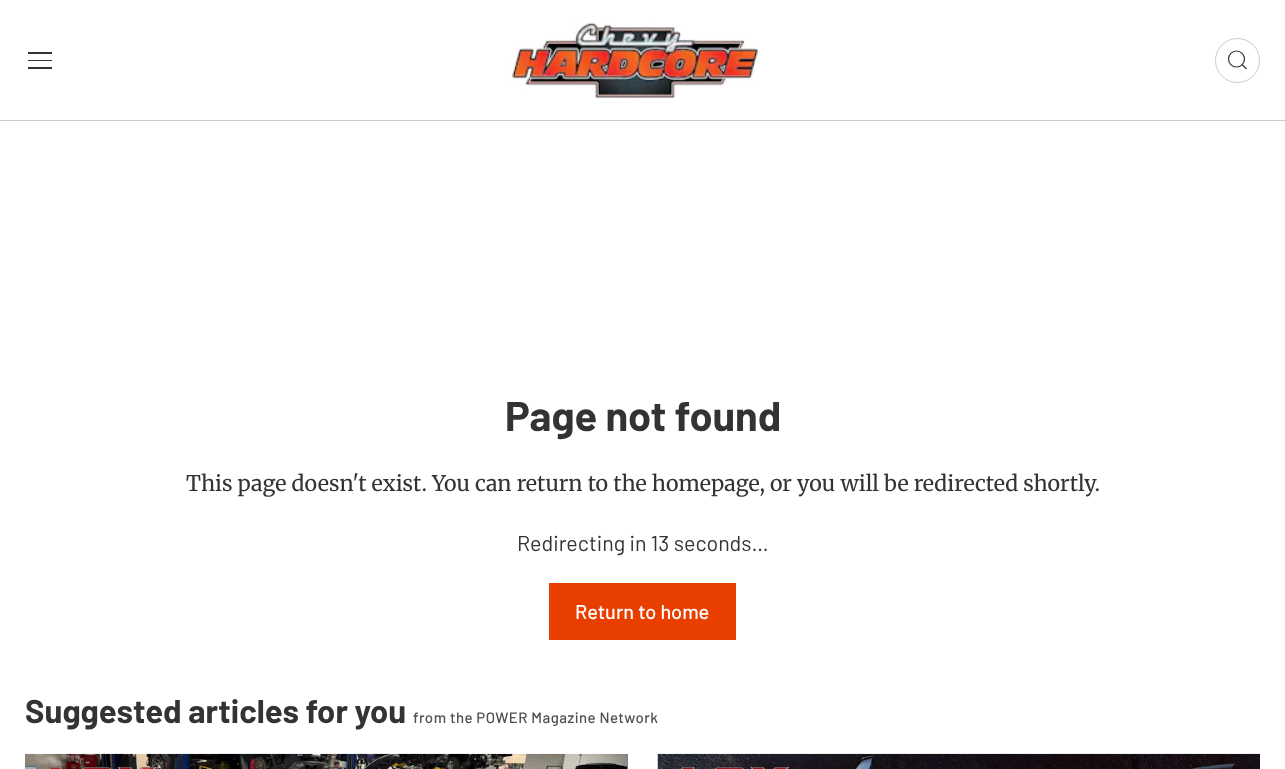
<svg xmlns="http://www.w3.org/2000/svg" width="1285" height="769">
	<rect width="100%" height="100%" fill="#FFFFFF" />
	<rect x="0" y="120" width="1285" height="1" fill="#CCCCCC" />
	<rect x="28" y="52" width="24" height="2" fill="#333333" />
	<rect x="28" y="60" width="24" height="1" fill="#333333" />
	<rect x="28" y="67" width="24" height="2" fill="#333333" />
	<image x="510" y="22" width="250" height="77" href="assets/img1.png" />
	<circle cx="1237.5" cy="60.5" r="22" fill="none" stroke="#CCCCCC" />
	<circle cx="1236.5" cy="59" r="8" fill="none" stroke="#333333" stroke-width="1.2" />
	<path d="M1242 64.5L1246.5 69Z" fill="none" stroke="#333333" stroke-width="1.2" />
	<text x="505" y="431" font-family="Barlow" font-size="41.5" font-weight="700" fill="#333333">Page not found</text>
	<text x="186" y="491" font-family="Merriweather" font-size="21.45" fill="#333333">This page doesn't exist. You can return to the homepage, or you will be redirected shortly.</text>
	<text x="517" y="551" font-family="Barlow" font-size="21.45" fill="#333333">Redirecting in 13 seconds…</text>
	<rect x="549" y="583" width="187" height="57" fill="#E83E00" />
	<text x="575" y="619" font-family="Barlow" font-size="20" font-weight="500" fill="#FFFFFF">Return to home</text>
	<text x="25" y="723" font-family="Barlow" font-size="32.8" font-weight="700" fill="#333333">Suggested articles for you</text>
	<text x="413" y="723" font-family="Barlow" font-size="15" font-weight="500" letter-spacing="0.45" fill="#505050">from the POWER Magazine Network</text>
	<rect x="627" y="754" width="1" height="15" fill="#808080" />
	<image x="25" y="753" width="603" height="16" href="assets/img2.png" />
	<image x="48" y="766" width="110" height="3" href="assets/img3.png" />
	<image x="657" y="753" width="603" height="16" href="assets/img4.png" />
	<image x="681" y="767" width="110" height="2" href="assets/img5.png" />
</svg>
